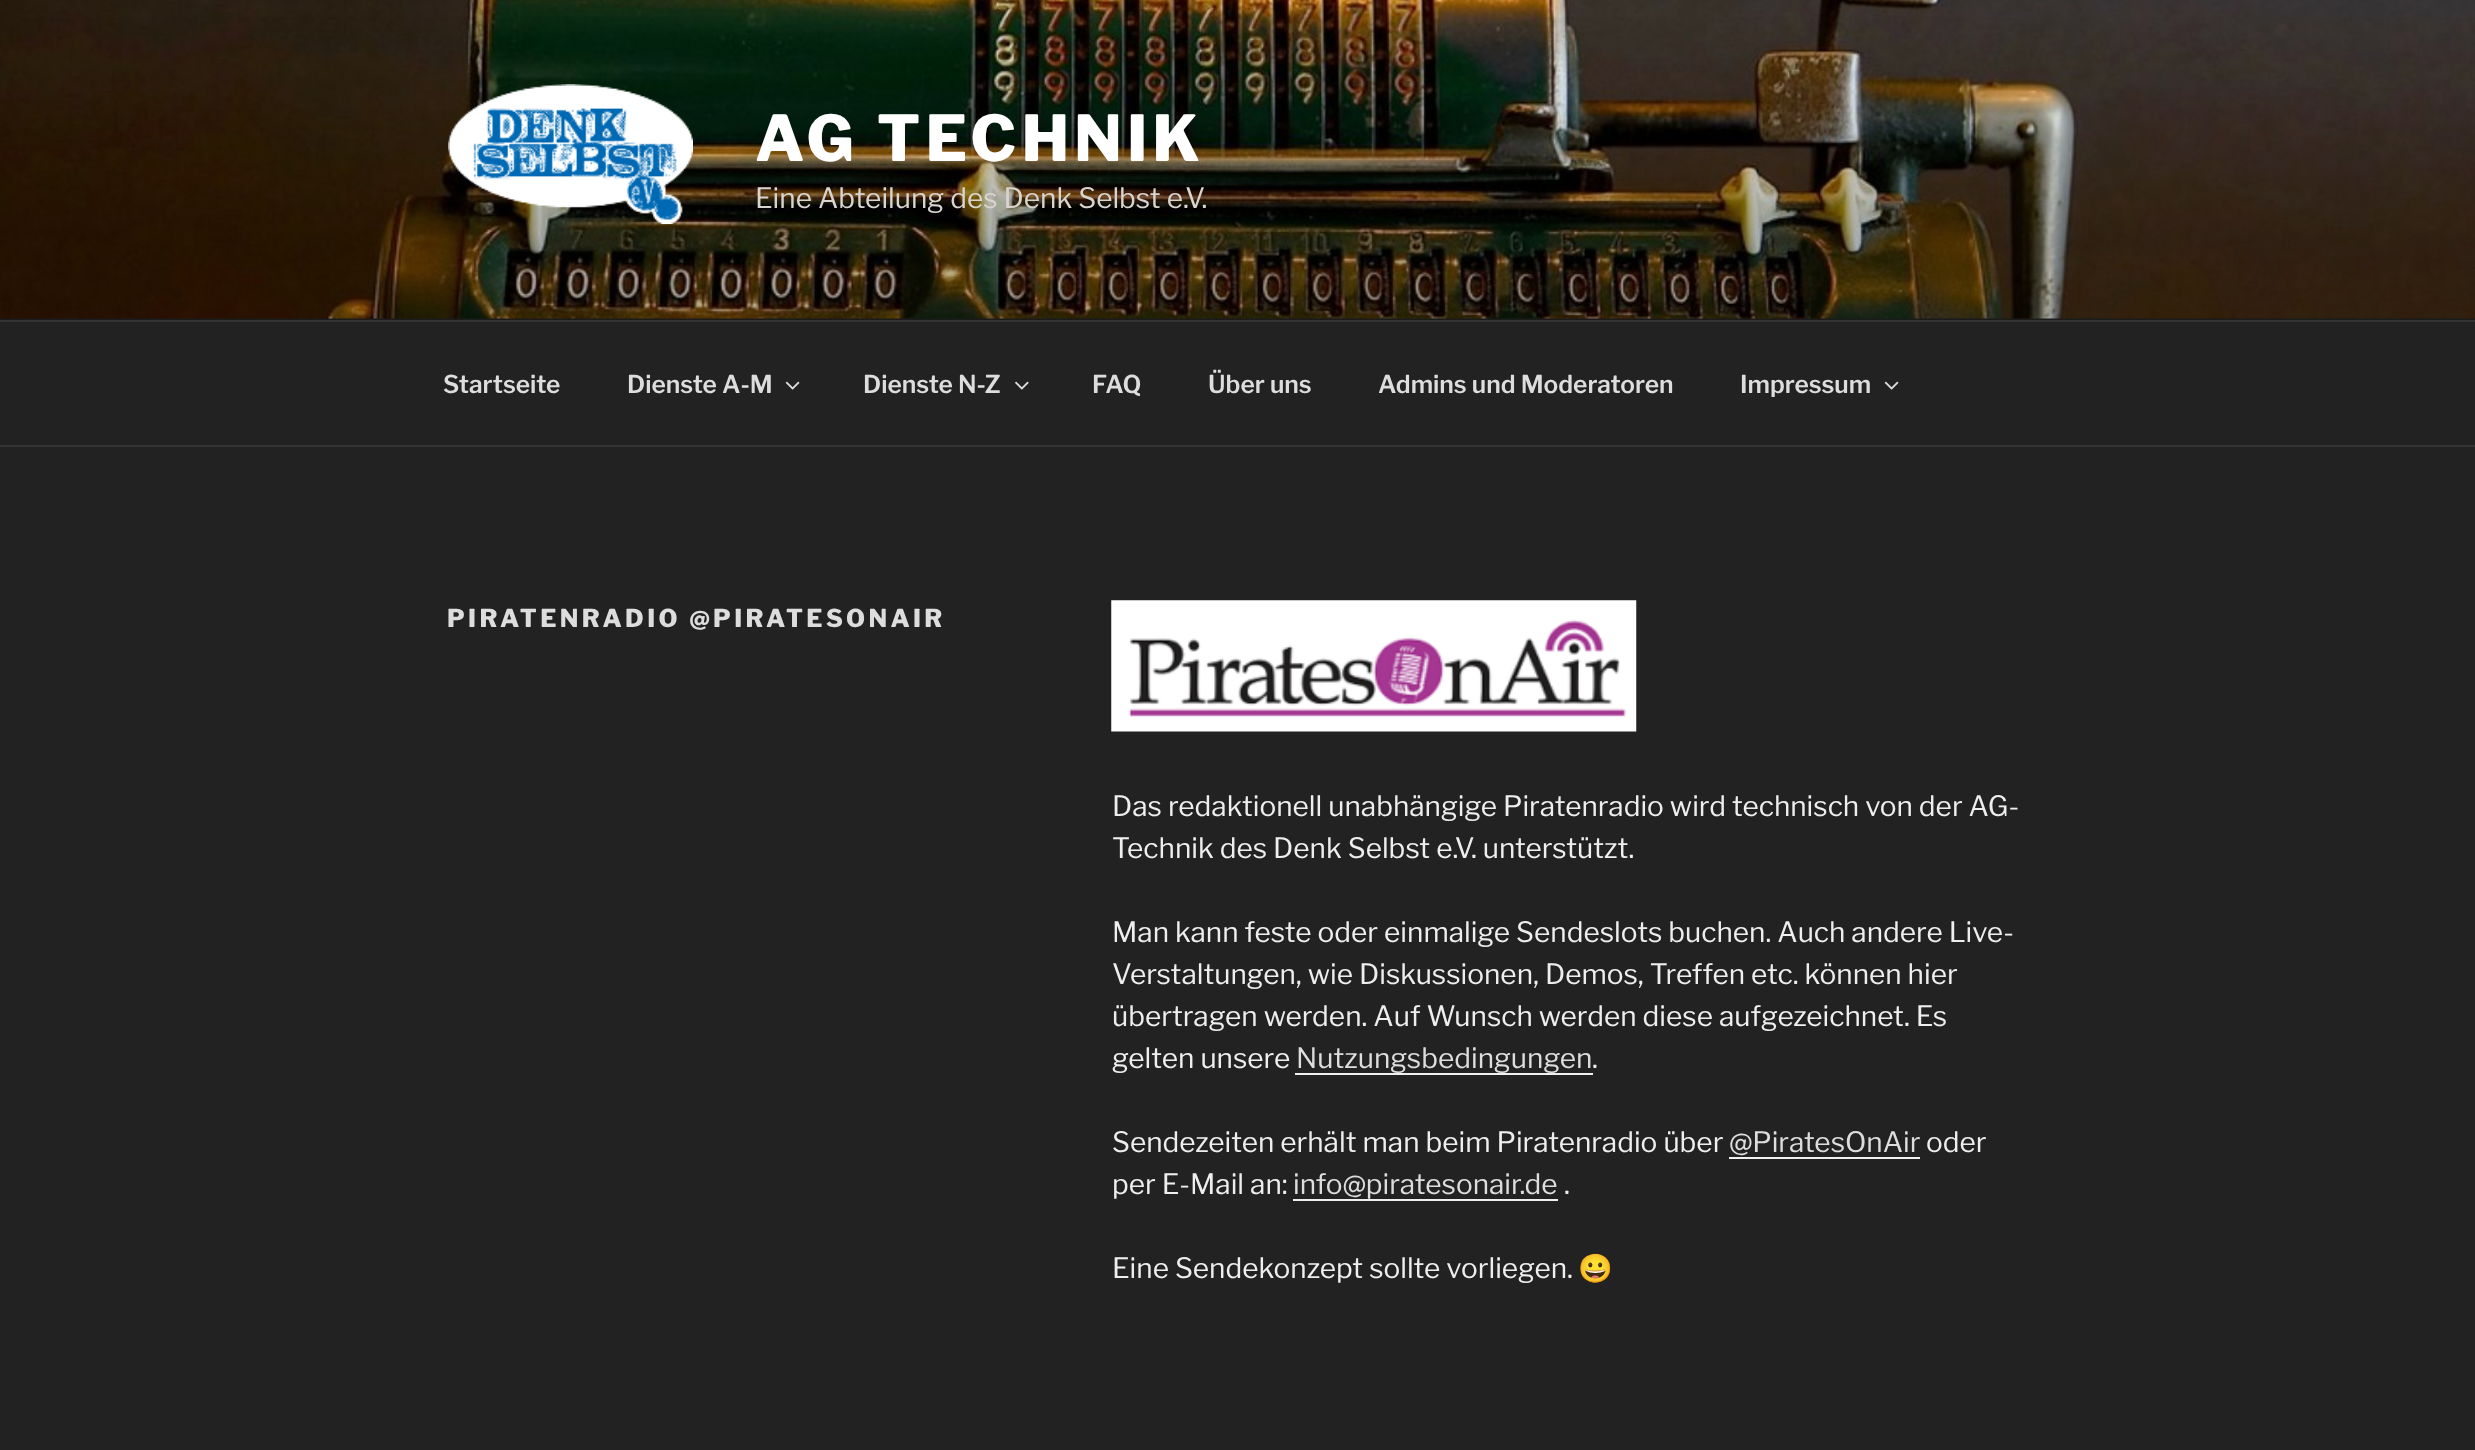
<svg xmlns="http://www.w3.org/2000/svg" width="2475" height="1450">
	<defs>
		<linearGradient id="g1" gradientUnits="userSpaceOnUse" x1="1238" y1="0" x2="1238" y2="320"><stop offset="0" stop-color="#000000" stop-opacity="0" /><stop offset="0.75" stop-color="#000000" stop-opacity="0.3" /><stop offset="1" stop-color="#000000" stop-opacity="0.3" /></linearGradient>
	</defs>
	<rect width="100%" height="100%" fill="#222222" />
	<rect x="0" y="318" width="2475" height="2" fill="#262626" />
	<image x="0" y="0" width="2475" height="319" href="assets/img1.png" />
	<rect x="0" y="17" width="2475" height="303" fill="url(#g1)" />
	<image x="448" y="84" width="245" height="140" href="assets/img2.png" />
	<text x="755" y="161" font-family="Libre Franklin" font-size="63" font-weight="100" letter-spacing="5" fill="#FFFFFF">AG TECHNIK</text>
	<text x="755" y="208" font-family="'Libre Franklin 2'" font-size="28" font-weight="100" fill="#D8D5D0">Eine Abteilung des Denk Selbst e.V.</text>
	<rect x="0" y="320" width="2475" height="2" fill="#333333" />
	<rect x="0" y="445" width="2475" height="2" fill="#333333" />
	<g font-family="'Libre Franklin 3'" font-size="24.5" font-weight="100" fill="#DDDDDD">
		<text x="443" y="393">Startseite</text>
		<text x="627" y="393">Dienste A-M</text>
	</g>
	<image x="785" y="381" width="15" height="9" href="assets/img3.png" />
	<text x="863" y="393" font-family="'Libre Franklin 3'" font-size="24.5" font-weight="100" fill="#DDDDDD">Dienste N-Z</text>
	<image x="1015" y="381" width="14" height="9" href="assets/img4.png" />
	<g font-family="'Libre Franklin 3'" font-size="24.5" font-weight="100" fill="#DDDDDD">
		<text x="1092" y="393">FAQ</text>
		<text x="1208" y="393">Über uns</text>
		<text x="1378" y="393">Admins und Moderatoren</text>
		<text x="1740" y="393">Impressum</text>
	</g>
	<image x="1884" y="381" width="15" height="9" href="assets/img3.png" />
	<text x="447" y="627" font-family="Libre Franklin" font-size="24.5" font-weight="100" letter-spacing="3.4" fill="#DDDDDD">PIRATENRADIO @PIRATESONAIR</text>
	<image x="1111" y="600" width="526" height="132" href="assets/img5.png" />
	<g font-family="'Libre Franklin 2'" font-size="28" font-weight="100" fill="#EEEEEE">
		<text x="1112" y="816">Das redaktionell unabhängige Piratenradio wird technisch von der AG-</text>
		<text x="1112" y="858">Technik des Denk Selbst e.V. unterstützt.</text>
		<text x="1112" y="942">Man kann feste oder einmalige Sendeslots buchen. Auch andere Live-</text>
		<text x="1112" y="984">Verstaltungen, wie Diskussionen, Demos, Treffen etc. können hier</text>
		<text x="1112" y="1026">übertragen werden. Auf Wunsch werden diese aufgezeichnet. Es</text>
		<text x="1112" y="1068">gelten unsere</text>
	</g>
	<text x="1296" y="1068" font-family="'Libre Franklin 2'" font-size="28" font-weight="100" fill="#DDDDDD">Nutzungsbedingungen</text>
	<rect x="1295" y="1073" width="298" height="2" fill="#F0F0F0" />
	<g font-family="'Libre Franklin 2'" font-size="28" font-weight="100" fill="#EEEEEE">
		<text x="1592" y="1068">.</text>
		<text x="1112" y="1152">Sendezeiten erhält man beim Piratenradio über</text>
	</g>
	<text x="1729" y="1152" font-family="'Libre Franklin 2'" font-size="28" font-weight="100" fill="#DDDDDD">@PiratesOnAir</text>
	<rect x="1729" y="1157" width="191" height="2" fill="#F0F0F0" />
	<g font-family="'Libre Franklin 2'" font-size="28" font-weight="100" fill="#EEEEEE">
		<text x="1926" y="1152">oder</text>
		<text x="1112" y="1194">per E-Mail an:</text>
	</g>
	<text x="1293" y="1194" font-family="'Libre Franklin 2'" font-size="28" font-weight="100" fill="#DDDDDD">info@piratesonair.de</text>
	<rect x="1293" y="1199" width="265" height="2" fill="#F0F0F0" />
	<g font-family="'Libre Franklin 2'" font-size="28" font-weight="100" fill="#EEEEEE">
		<text x="1564" y="1194">.</text>
		<text x="1112" y="1278">Eine Sendekonzept sollte vorliegen.</text>
	</g>
	<text x="1578" y="1278" font-family="Noto Color Emoji" font-size="28" fill="#EEEEEE">😀</text>
</svg>
